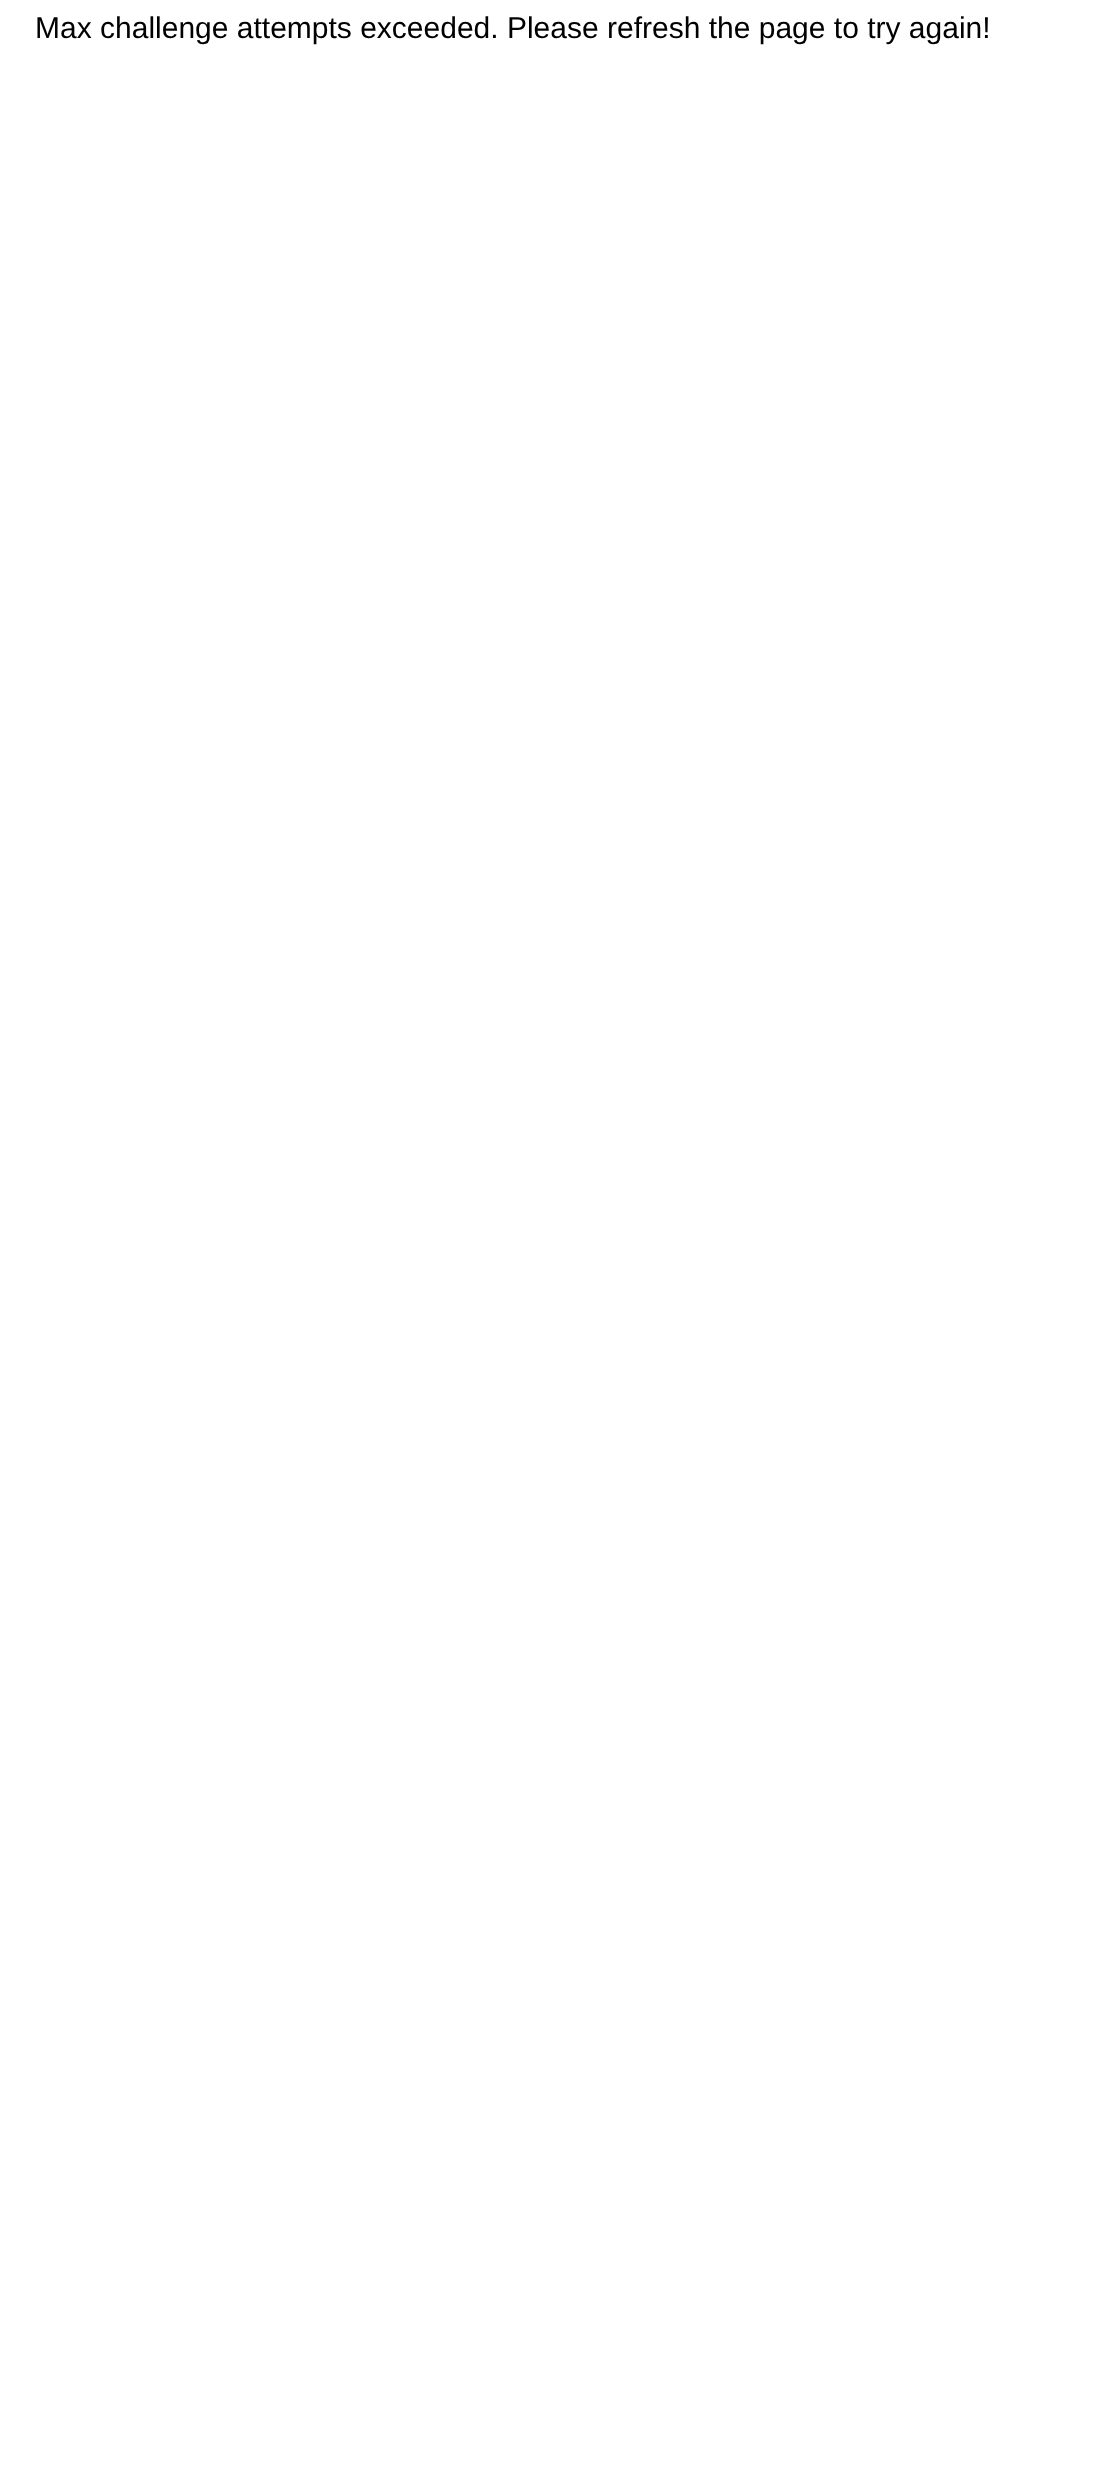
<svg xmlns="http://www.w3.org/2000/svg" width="1119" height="2482">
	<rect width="100%" height="100%" fill="#FFFFFF" />
	<text x="35" y="38" font-family="Liberation Sans" font-size="30" fill="#000000">Max challenge attempts exceeded. Please refresh the page to try again!</text>
</svg>
